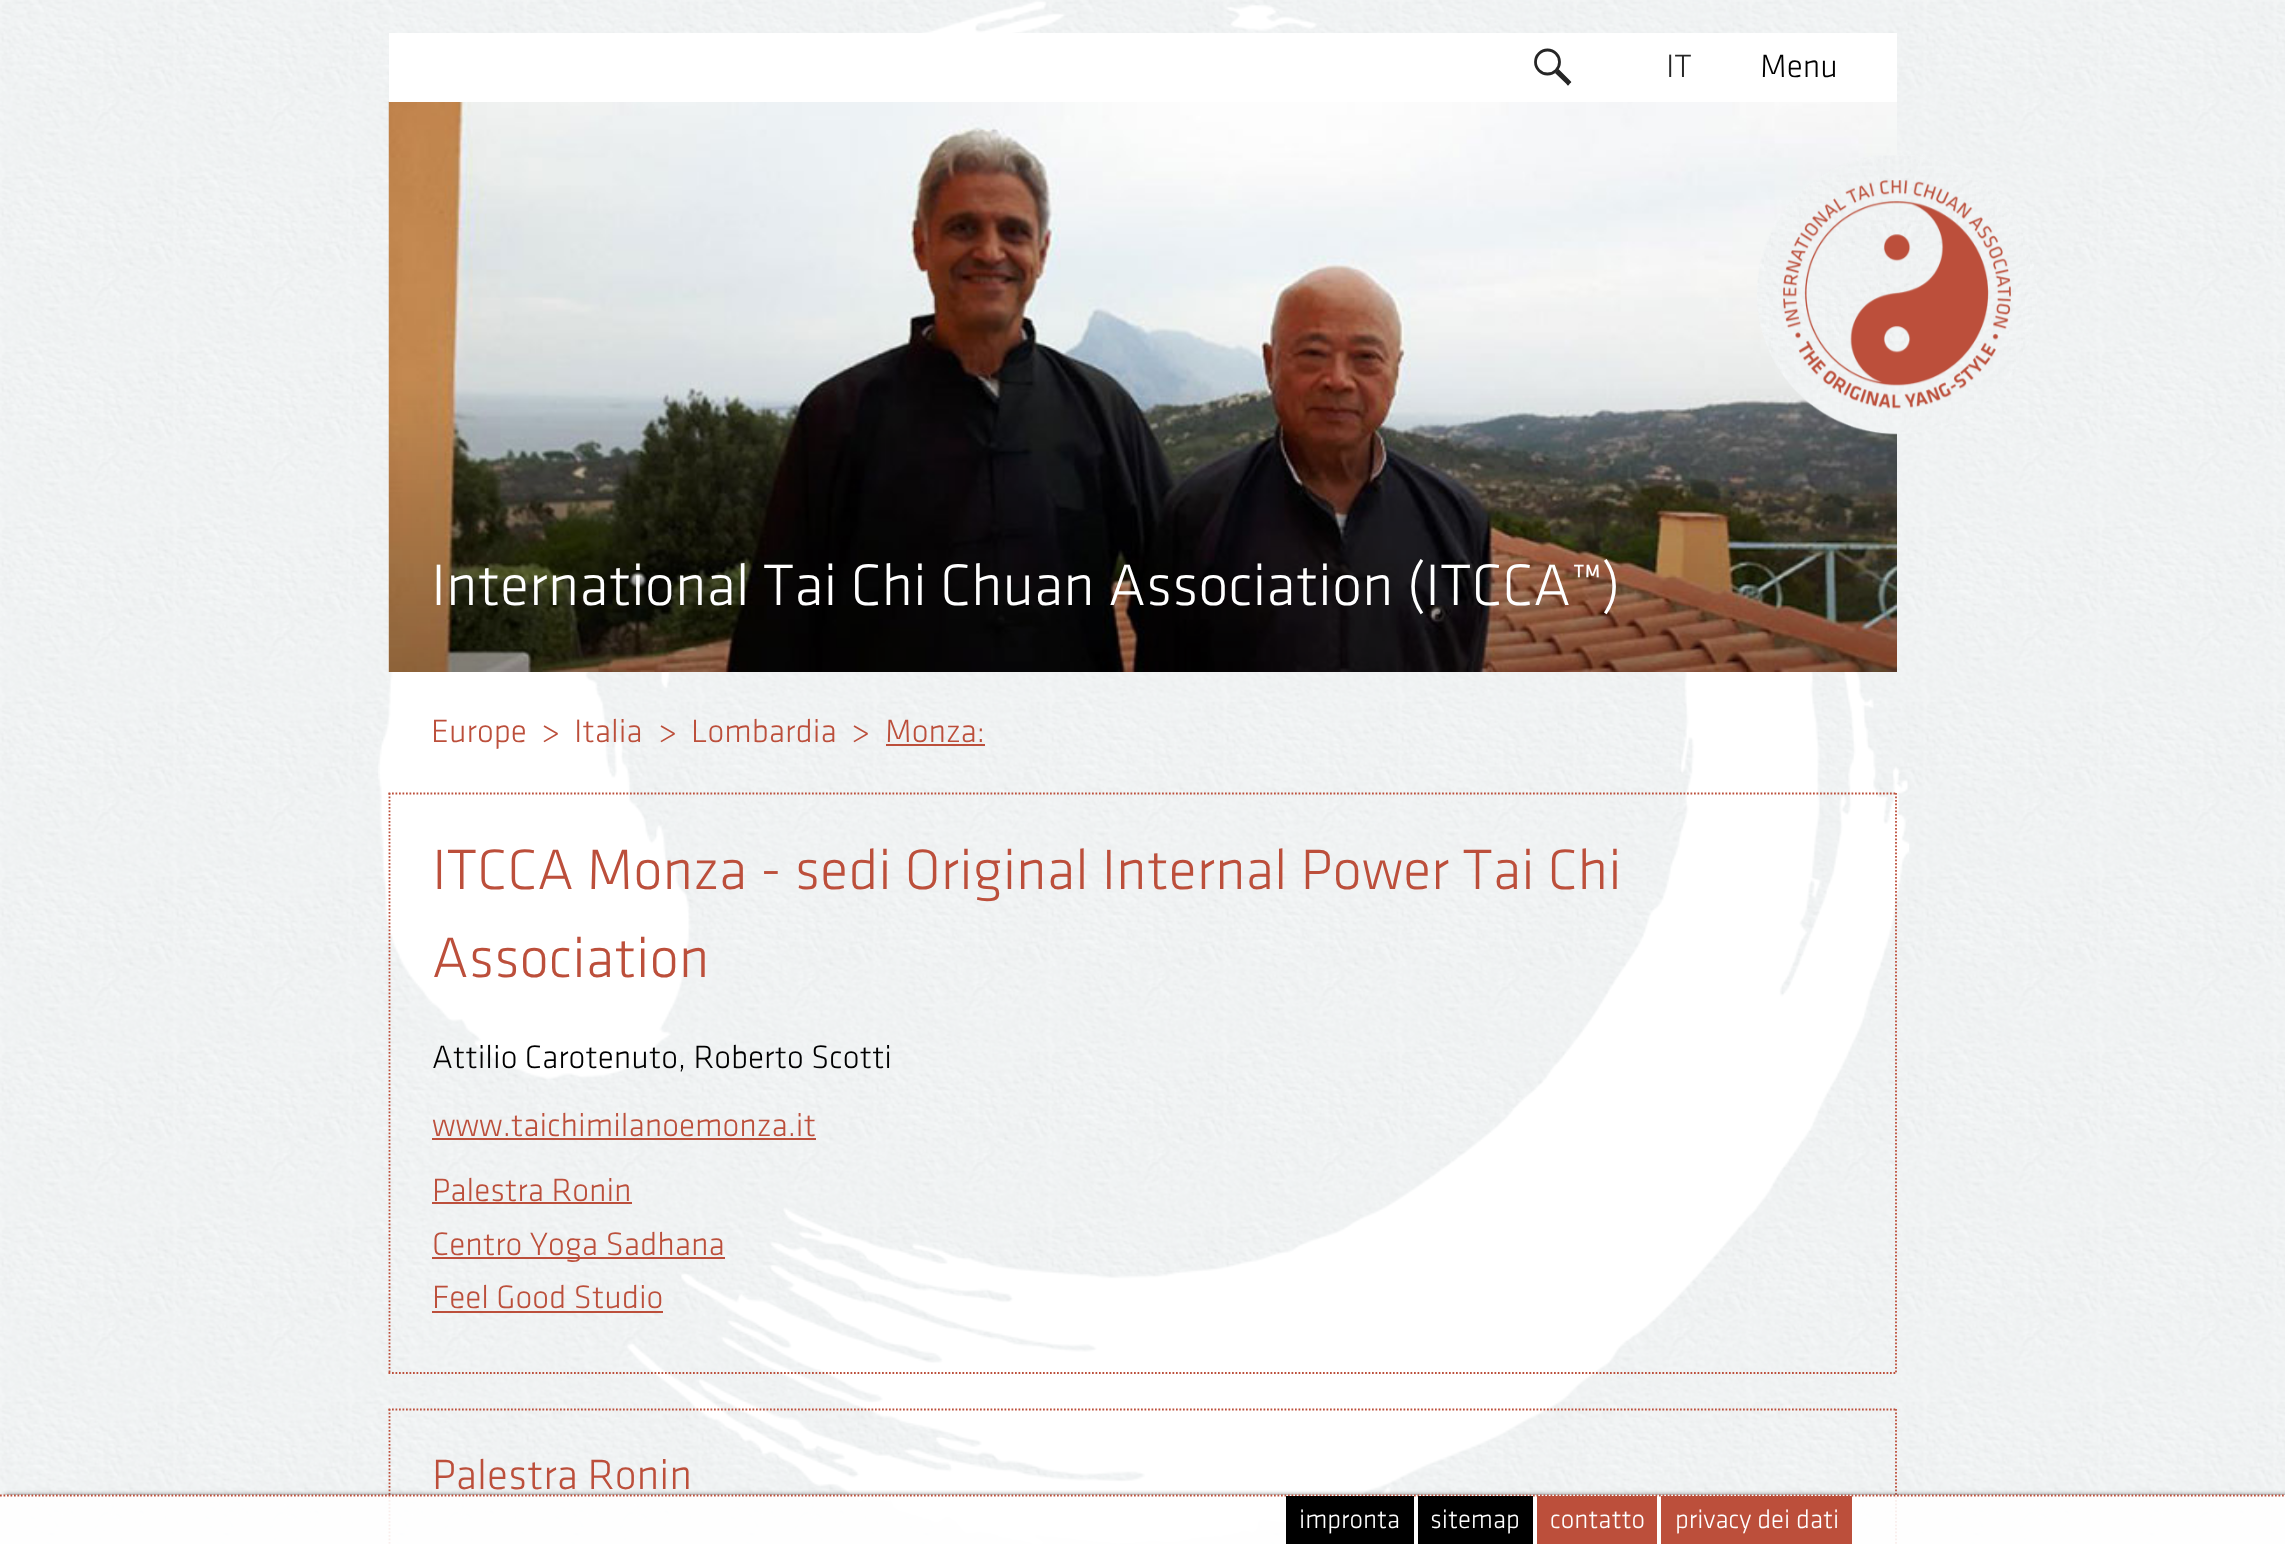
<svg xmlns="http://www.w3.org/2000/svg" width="2285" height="1544">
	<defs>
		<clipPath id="clip1"><rect x="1" y="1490" width="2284" height="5" /></clipPath>
	</defs>
	<rect width="100%" height="100%" fill="#FFFFFF" />
	<image x="0" y="0" width="2285" height="1544" href="assets/img1.png" />
	<image x="388" y="101" width="1509" height="571" href="assets/img2.png" />
	<rect x="389" y="33" width="1508" height="69" fill="#FFFFFF" />
	<circle cx="1547.5" cy="62" r="12" fill="none" stroke="#262626" stroke-width="2.8" />
	<path d="M1558.5 69L1555 73L1566.5 84C1568 86 1568 86 1569.5 84C1571.5 82 1572 82.5 1570 80.5Z" fill="#262626" fill-rule="evenodd" />
	<text x="1666" y="77" font-family="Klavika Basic" font-size="33.6" font-weight="300" fill="#262626">IT</text>
	<text x="1760" y="77" font-family="Klavika Basic" font-size="33.6" font-weight="300" fill="#000000">Menu</text>
	<image x="1757" y="155" width="280" height="280" href="assets/img3.png" />
	<text x="431" y="605" font-family="Klavika Basic" font-size="60.5" font-weight="300" fill="#FFFFFF">International Tai Chi Chuan Association (ITCCA™)</text>
	<g font-family="Klavika Basic" font-size="33.6" font-weight="300" fill="#BC4F3B">
		<text x="431" y="742">Europe</text>
		<text x="541" y="742">&gt;</text>
		<text x="574" y="742">Italia</text>
		<text x="658" y="742">&gt;</text>
		<text x="691" y="742">Lombardia</text>
		<text x="851" y="742">&gt;</text>
		<text x="885" y="742">Monza:</text>
	</g>
	<rect x="886" y="744" width="99" height="2" fill="#BC4F3B" />
	<path d="M388.5 793.5H1897" fill="none" stroke="#BC4F3B" stroke-width="1.8" stroke-dasharray="1.75 1.75" />
	<path d="M1896 793V1374" fill="none" stroke="#BC4F3B" stroke-width="1.8" stroke-dasharray="1.75 1.75" />
	<path d="M388.5 1373H1897" fill="none" stroke="#BC4F3B" stroke-width="1.8" stroke-dasharray="1.75 1.75" />
	<path d="M389.5 793V1374" fill="none" stroke="#BC4F3B" stroke-width="1.8" stroke-dasharray="1.75 1.75" />
	<g font-family="Klavika Basic" font-size="58.8" font-weight="300" fill="#BC4F3B">
		<text x="432" y="889">ITCCA Monza - sedi Original Internal Power Tai Chi</text>
		<text x="432" y="977">Association</text>
	</g>
	<text x="432" y="1068" font-family="Klavika Basic" font-size="33.6" font-weight="300" fill="#000000">Attilio Carotenuto, Roberto Scotti</text>
	<text x="432" y="1136" font-family="Klavika Basic" font-size="33.6" font-weight="300" fill="#BC4F3B">www.taichimilanoemonza.it</text>
	<rect x="432" y="1138" width="384" height="2" fill="#BC4F3B" />
	<text x="432" y="1201" font-family="Klavika Basic" font-size="33.6" font-weight="300" fill="#BC4F3B">Palestra Ronin</text>
	<rect x="432" y="1202" width="200" height="2" fill="#BC4F3B" />
	<rect x="432" y="1257" width="293" height="2" fill="#BC4F3B" />
	<g font-family="Klavika Basic" font-size="33.6" font-weight="300" fill="#BC4F3B">
		<text x="432" y="1255">Centro Yoga Sadhana</text>
		<text x="432" y="1308">Feel Good Studio</text>
	</g>
	<rect x="432" y="1311" width="231" height="2" fill="#BC4F3B" />
	<path d="M388.5 1409.5H1897" fill="none" stroke="#BC4F3B" stroke-width="1.8" stroke-dasharray="1.75 1.75" />
	<path d="M1896 1409V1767.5" fill="none" stroke="#BC4F3B" stroke-width="1.8" stroke-dasharray="1.75 1.75" />
	<path d="M389.5 1409V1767.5" fill="none" stroke="#BC4F3B" stroke-width="1.8" stroke-dasharray="1.75 1.75" />
	<text x="432" y="1489" font-family="Klavika Basic" font-size="43.75" font-weight="300" fill="#BC4F3B">Palestra Ronin</text>
	<g clip-path="url(#clip1)">
		<rect x="5" y="1495" width="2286" height="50" fill="#666666" filter="blur(2.5px)" />
	</g>
	<rect x="0" y="1495" width="2285" height="49" fill="#FFFFFF" fill-opacity="0.9" />
	<path d="M0 1495.5H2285.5" fill="none" stroke="#BC4F3B" stroke-width="1.8" stroke-dasharray="1.75 1.75" />
	<rect x="1286" y="1496" width="128" height="48" fill="#000000" />
	<text x="1299" y="1528" font-family="Klavika Basic" font-size="27" font-weight="300" fill="#FFFFFF">impronta</text>
	<rect x="1418" y="1496" width="115" height="48" fill="#000000" />
	<text x="1430" y="1528" font-family="Klavika Basic" font-size="27" font-weight="300" fill="#FFFFFF">sitemap</text>
	<rect x="1537" y="1496" width="120" height="48" fill="#BC4F3B" />
	<text x="1550" y="1528" font-family="Klavika Basic" font-size="27" font-weight="300" fill="#FFFFFF">contatto</text>
	<rect x="1661" y="1496" width="191" height="48" fill="#BC4F3B" />
	<text x="1675" y="1528" font-family="Klavika Basic" font-size="27" font-weight="300" fill="#FFFFFF">privacy dei dati</text>
</svg>
